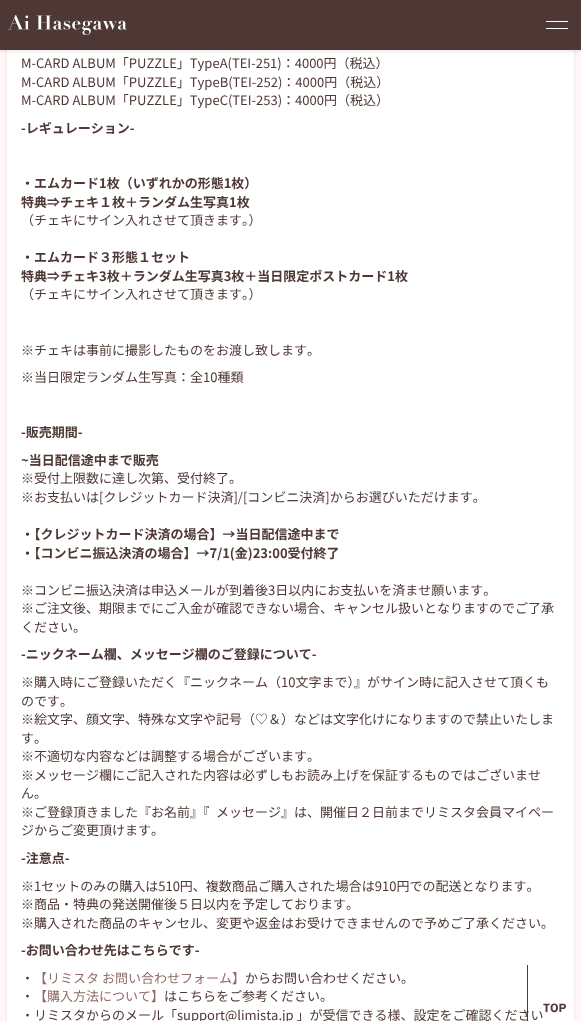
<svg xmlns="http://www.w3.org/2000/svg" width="581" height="1021">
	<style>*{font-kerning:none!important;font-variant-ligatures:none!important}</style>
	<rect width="100%" height="100%" fill="#FFF7F7" />
	<rect x="7" y="-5" width="567" height="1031" fill="#906A65" fill-opacity="0.2" filter="blur(1.5px)" />
	<rect x="7" y="50" width="567" height="971" fill="#FFFFFF" />
	<rect x="0" y="2" width="581" height="50" fill="#000000" fill-opacity="0.08" filter="blur(1.5px)" />
	<rect x="0" y="0" width="581" height="50" fill="#4E3835" />
	<image x="8" y="15" width="119" height="20" href="assets/img1.png" />
	<rect x="546" y="21" width="22" height="1" fill="#FFFFFF" />
	<rect x="546" y="28" width="22" height="1" fill="#FFFFFF" />
	<g font-family="Noto Sans JP" font-size="13" fill="#4E3835">
		<text x="21" y="68">M-CARD ALBUM「PUZZLE」TypeA(TEI-251)：4000円（税込）</text>
		<text x="21" y="87">M-CARD ALBUM「PUZZLE」TypeB(TEI-252)：4000円（税込）</text>
		<text x="21" y="105">M-CARD ALBUM「PUZZLE」TypeC(TEI-253)：4000円（税込）</text>
	</g>
	<g font-family="Noto Sans JP" font-size="13" font-weight="700" fill="#4E3835">
		<text x="21" y="133">-レギュレーション-</text>
		<text x="21" y="188">・エムカード1枚（いずれかの形態1枚）</text>
		<text x="21" y="207">特典⇒チェキ１枚＋ランダム生写真1枚</text>
	</g>
	<text x="21" y="225" font-family="Noto Sans JP" font-size="13" fill="#4E3835">（チェキにサイン入れさせて頂きます。）</text>
	<g font-family="Noto Sans JP" font-size="13" font-weight="700" fill="#4E3835">
		<text x="21" y="262">・エムカード３形態１セット</text>
		<text x="21" y="281">特典⇒チェキ3枚＋ランダム生写真3枚＋当日限定ポストカード1枚</text>
	</g>
	<g font-family="Noto Sans JP" font-size="13" fill="#4E3835">
		<text x="21" y="299">（チェキにサイン入れさせて頂きます。）</text>
		<text x="21" y="355">※チェキは事前に撮影したものをお渡し致します。</text>
		<text x="21" y="382">※当日限定ランダム生写真：全10種類</text>
	</g>
	<g font-family="Noto Sans JP" font-size="13" font-weight="700" fill="#4E3835">
		<text x="21" y="437">-販売期間-</text>
		<text x="21" y="465">~当日配信途中まで販売</text>
	</g>
	<g font-family="Noto Sans JP" font-size="13" fill="#4E3835">
		<text x="21" y="483">※受付上限数に達し次第、受付終了。</text>
		<text x="21" y="502">※お支払いは[クレジットカード決済]/[コンビニ決済]からお選びいただけます。</text>
	</g>
	<g font-family="Noto Sans JP" font-size="13" font-weight="700" fill="#4E3835">
		<text x="21" y="539">・【クレジットカード決済の場合】→当日配信途中まで</text>
		<text x="21" y="558">・【コンビニ振込決済の場合】→7/1(金)23:00受付終了</text>
	</g>
	<g font-family="Noto Sans JP" font-size="13" fill="#4E3835">
		<text x="21" y="595">※コンビニ振込決済は申込メールが到着後3日以内にお支払いを済ませ願います。</text>
		<text x="21" y="613">※ご注文後、期限までにご入金が確認できない場合、キャンセル扱いとなりますのでご了承</text>
		<text x="21" y="632">ください。</text>
	</g>
	<text x="21" y="659" font-family="Noto Sans JP" font-size="13" font-weight="700" fill="#4E3835">-ニックネーム欄、メッセージ欄のご登録について-</text>
	<g font-family="Noto Sans JP" font-size="13" fill="#4E3835">
		<text x="21" y="687">※購入時にご登録いただく『ニックネーム（10文字まで）』がサイン時に記入させて頂くも</text>
		<text x="21" y="706">のです。</text>
		<text x="21" y="724">※絵文字、顔文字、特殊な文字や記号（♡＆）などは文字化けになりますので禁止いたしま</text>
		<text x="21" y="743">す。</text>
		<text x="21" y="761">※不適切な内容などは調整する場合がございます。</text>
		<text x="21" y="780">※メッセージ欄にご記入された内容は必ずしもお読み上げを保証するものではございませ</text>
		<text x="21" y="798">ん。</text>
		<text x="21" y="817">※ご登録頂きました『お名前』『</text>
		<text x="216" y="817">メッセージ』は、開催日２日前までリミスタ会員マイペー</text>
		<text x="21" y="835">ジからご変更頂けます。</text>
	</g>
	<text x="21" y="863" font-family="Noto Sans JP" font-size="13" font-weight="700" fill="#4E3835">-注意点-</text>
	<g font-family="Noto Sans JP" font-size="13" fill="#4E3835">
		<text x="21" y="891">※1セットのみの購入は510円、複数商品ご購入された場合は910円での配送となります。</text>
		<text x="21" y="909">※商品・特典の発送開催後５日以内を予定しております。</text>
		<text x="21" y="928">※購入された商品のキャンセル、変更や返金はお受けできませんので予めご了承ください。</text>
	</g>
	<text x="21" y="955" font-family="Noto Sans JP" font-size="13" font-weight="700" fill="#4E3835">-お問い合わせ先はこちらです-</text>
	<text x="21" y="983" font-family="Noto Sans JP" font-size="13" fill="#4E3835">・</text>
	<text x="34" y="983" font-family="Noto Sans JP" font-size="13" fill="#906A65">【リミスタ お問い合わせフォーム】</text>
	<g font-family="Noto Sans JP" font-size="13" fill="#4E3835">
		<text x="245" y="983">からお問い合わせください。</text>
		<text x="21" y="1001">・</text>
	</g>
	<text x="34" y="1001" font-family="Noto Sans JP" font-size="13" fill="#906A65">【購入方法について】</text>
	<g font-family="Noto Sans JP" font-size="13" fill="#4E3835">
		<text x="164" y="1001">はこちらをご参考ください。</text>
		<text x="21" y="1020">・リミスタからのメール「support@limista.jp 」が受信できる様、設定をご確認ください</text>
	</g>
	<rect x="527" y="965" width="1" height="56" fill="#4E3835" />
	<text x="543" y="1012" font-family="IBM Plex Sans" font-size="12" font-weight="700" fill="#4E3835">TOP</text>
</svg>
